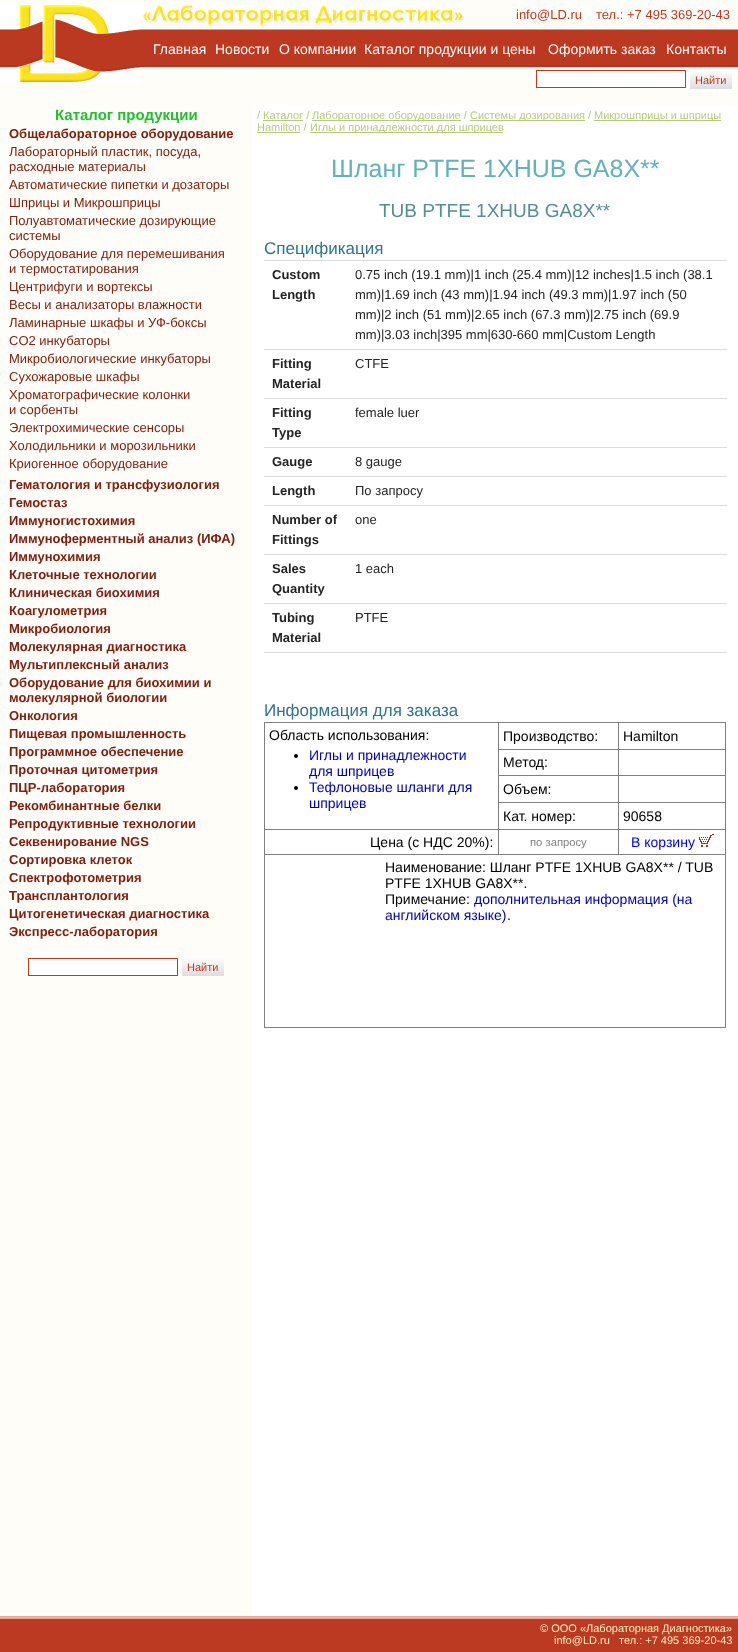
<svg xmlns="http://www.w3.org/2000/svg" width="738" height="1652">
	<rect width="100%" height="100%" fill="#FEFDF8" />
	<image x="0" y="4" width="141" height="79" href="assets/img1.png" />
	<image x="142" y="2" width="322" height="25" href="assets/img2.png" />
	<g font-family="Liberation Sans" font-size="13" fill="#BC3921">
		<text x="516" y="19">info@LD.ru</text>
		<text x="596" y="19">тел.: +7 495 369-20-43</text>
	</g>
	<image x="141" y="29" width="597" height="39" href="assets/img3.png" />
	<g font-family="Liberation Sans" font-size="14" fill="#FFFFFF">
		<text x="153" y="54">Главная</text>
		<text x="215" y="54">Новости</text>
		<text x="279" y="54">О компании</text>
		<text x="364" y="54">Каталог продукции и цены</text>
		<text x="548" y="54">Оформить заказ</text>
		<text x="666" y="54">Контакты</text>
	</g>
	<rect x="536.5" y="70.5" width="149" height="17" fill="#FFFFFF" stroke="#BD3A22" />
	<image x="690" y="71" width="42" height="18" href="assets/img4.png" />
	<text x="695" y="84" font-family="Liberation Sans" font-size="11" fill="#BC3921">Найти</text>
	<text x="55" y="120" font-family="Liberation Sans" font-size="15" font-weight="700" fill="#20C233">Каталог продукции</text>
	<text x="9" y="138" font-family="Liberation Sans" font-size="13" font-weight="700" fill="#802010">Общелабораторное оборудование</text>
	<g font-family="Liberation Sans" font-size="13" fill="#802010">
		<text x="9" y="156">Лабораторный пластик, посуда,</text>
		<text x="9" y="171">расходные материалы</text>
		<text x="9" y="189">Автоматические пипетки и дозаторы</text>
		<text x="9" y="207">Шприцы и Микрошприцы</text>
		<text x="9" y="225">Полуавтоматические дозирующие</text>
		<text x="9" y="240">системы</text>
		<text x="9" y="258">Оборудование для перемешивания</text>
		<text x="9" y="273">и термостатирования</text>
		<text x="9" y="291">Центрифуги и вортексы</text>
		<text x="9" y="309">Весы и анализаторы влажности</text>
		<text x="9" y="327">Ламинарные шкафы и УФ-боксы</text>
		<text x="9" y="345">CO2 инкубаторы</text>
		<text x="9" y="363">Микробиологические инкубаторы</text>
		<text x="9" y="381">Сухожаровые шкафы</text>
		<text x="9" y="399">Хроматографические колонки</text>
		<text x="9" y="414">и сорбенты</text>
		<text x="9" y="432">Электрохимические сенсоры</text>
		<text x="9" y="450">Холодильники и морозильники</text>
		<text x="9" y="468">Криогенное оборудование</text>
	</g>
	<g font-family="Liberation Sans" font-size="13" font-weight="700" fill="#802010">
		<text x="9" y="489">Гематология и трансфузиология</text>
		<text x="9" y="507">Гемостаз</text>
		<text x="9" y="525">Иммуногистохимия</text>
		<text x="9" y="543">Иммуноферментный анализ (ИФА)</text>
		<text x="9" y="561">Иммунохимия</text>
		<text x="9" y="579">Клеточные технологии</text>
		<text x="9" y="597">Клиническая биохимия</text>
		<text x="9" y="615">Коагулометрия</text>
		<text x="9" y="633">Микробиология</text>
		<text x="9" y="651">Молекулярная диагностика</text>
		<text x="9" y="669">Мультиплексный анализ</text>
		<text x="9" y="687">Оборудование для биохимии и</text>
		<text x="9" y="702">молекулярной биологии</text>
		<text x="9" y="720">Онкология</text>
		<text x="9" y="738">Пищевая промышленность</text>
		<text x="9" y="756">Программное обеспечение</text>
		<text x="9" y="774">Проточная цитометрия</text>
		<text x="9" y="792">ПЦР-лаборатория</text>
		<text x="9" y="810">Рекомбинантные белки</text>
		<text x="9" y="828">Репродуктивные технологии</text>
		<text x="9" y="846">Секвенирование NGS</text>
		<text x="9" y="864">Сортировка клеток</text>
		<text x="9" y="882">Спектрофотометрия</text>
		<text x="9" y="900">Трансплантология</text>
		<text x="9" y="918">Цитогенетическая диагностика</text>
		<text x="9" y="936">Экспресс-лаборатория</text>
	</g>
	<rect x="28.5" y="958.5" width="149" height="17" fill="#FFFFFF" stroke="#BD3A22" />
	<image x="182" y="958" width="42" height="18" href="assets/img4.png" />
	<text x="187" y="971" font-family="Liberation Sans" font-size="11" fill="#BC3921">Найти</text>
	<rect x="252" y="105" width="486" height="1511" fill="#FFFFFF" />
	<text x="257" y="119" font-family="Liberation Sans" font-size="11" fill="#B7CA7C">/ Каталог /</text>
	<rect x="312" y="120" width="149" height="1" fill="#B7CA7C" />
	<text x="312" y="119" font-family="Liberation Sans" font-size="11" fill="#B7CA7C">Лабораторное оборудование /</text>
	<rect x="470" y="120" width="115" height="1" fill="#B7CA7C" />
	<text x="470" y="119" font-family="Liberation Sans" font-size="11" fill="#B7CA7C">Системы дозирования /</text>
	<rect x="594" y="120" width="127" height="1" fill="#B7CA7C" />
	<text x="594" y="119" font-family="Liberation Sans" font-size="11" fill="#B7CA7C">Микрошприцы и шприцы</text>
	<rect x="263" y="120" width="40" height="1" fill="#B7CA7C" />
	<text x="257" y="131" font-family="Liberation Sans" font-size="11" fill="#B7CA7C">Hamilton /</text>
	<rect x="257" y="132" width="43" height="1" fill="#B7CA7C" />
	<rect x="310" y="132" width="193" height="1" fill="#B7CA7C" />
	<text x="310" y="131" font-family="Liberation Sans" font-size="11" fill="#B7CA7C">Иглы и принадлежности для шприцев</text>
	<text x="331" y="177" font-family="Liberation Sans" font-size="25" fill="#63B1BD">Шланг PTFE 1XHUB GA8X**</text>
	<text x="379" y="217" font-family="Liberation Sans" font-size="19" fill="#548E98">TUB PTFE 1XHUB GA8X**</text>
	<text x="264" y="254" font-family="Liberation Sans" font-size="17" fill="#2D7593">Спецификация</text>
	<g font-family="Liberation Sans" font-size="13" font-weight="700" fill="#242424">
		<text x="272" y="279">Custom</text>
		<text x="272" y="299">Length</text>
	</g>
	<rect x="264" y="260" width="463" height="1" fill="#DDDDDD" />
	<g font-family="Liberation Sans" font-size="13" fill="#242424">
		<text x="355" y="279">0.75 inch (19.1 mm)|1 inch (25.4 mm)|12 inches|1.5 inch (38.1</text>
		<text x="355" y="299">mm)|1.69 inch (43 mm)|1.94 inch (49.3 mm)|1.97 inch (50</text>
		<text x="355" y="319">mm)|2 inch (51 mm)|2.65 inch (67.3 mm)|2.75 inch (69.9</text>
		<text x="355" y="339">mm)|3.03 inch|395 mm|630-660 mm|Custom Length</text>
	</g>
	<g font-family="Liberation Sans" font-size="13" font-weight="700" fill="#242424">
		<text x="272" y="368">Fitting</text>
		<text x="272" y="388">Material</text>
	</g>
	<rect x="264" y="349" width="463" height="1" fill="#DDDDDD" />
	<text x="355" y="368" font-family="Liberation Sans" font-size="13" fill="#242424">CTFE</text>
	<g font-family="Liberation Sans" font-size="13" font-weight="700" fill="#242424">
		<text x="272" y="417">Fitting</text>
		<text x="272" y="437">Type</text>
	</g>
	<rect x="264" y="398" width="463" height="1" fill="#DDDDDD" />
	<text x="355" y="417" font-family="Liberation Sans" font-size="13" fill="#242424">female luer</text>
	<text x="272" y="466" font-family="Liberation Sans" font-size="13" font-weight="700" fill="#242424">Gauge</text>
	<rect x="264" y="447" width="463" height="1" fill="#DDDDDD" />
	<text x="355" y="466" font-family="Liberation Sans" font-size="13" fill="#242424">8 gauge</text>
	<text x="272" y="495" font-family="Liberation Sans" font-size="13" font-weight="700" fill="#242424">Length</text>
	<rect x="264" y="476" width="463" height="1" fill="#DDDDDD" />
	<text x="355" y="495" font-family="Liberation Sans" font-size="13" fill="#242424">По запросу</text>
	<g font-family="Liberation Sans" font-size="13" font-weight="700" fill="#242424">
		<text x="272" y="524">Number of</text>
		<text x="272" y="544">Fittings</text>
	</g>
	<rect x="264" y="505" width="463" height="1" fill="#DDDDDD" />
	<text x="355" y="524" font-family="Liberation Sans" font-size="13" fill="#242424">one</text>
	<g font-family="Liberation Sans" font-size="13" font-weight="700" fill="#242424">
		<text x="272" y="573">Sales</text>
		<text x="272" y="593">Quantity</text>
	</g>
	<rect x="264" y="554" width="463" height="1" fill="#DDDDDD" />
	<text x="355" y="573" font-family="Liberation Sans" font-size="13" fill="#242424">1 each</text>
	<g font-family="Liberation Sans" font-size="13" font-weight="700" fill="#242424">
		<text x="272" y="622">Tubing</text>
		<text x="272" y="642">Material</text>
	</g>
	<rect x="264" y="603" width="463" height="1" fill="#DDDDDD" />
	<text x="355" y="622" font-family="Liberation Sans" font-size="13" fill="#242424">PTFE</text>
	<rect x="264" y="652" width="463" height="1" fill="#DDDDDD" />
	<text x="264" y="716" font-family="Liberation Sans" font-size="17" fill="#2D7593">Информация для заказа</text>
	<rect x="618" y="722" width="108" height="1" fill="#808080" />
	<rect x="618" y="749" width="108" height="1" fill="#808080" />
	<rect x="618" y="775" width="108" height="1" fill="#808080" />
	<rect x="618" y="802" width="108" height="1" fill="#808080" />
	<rect x="618" y="829" width="108" height="1" fill="#808080" />
	<rect x="264" y="854" width="462" height="1" fill="#808080" />
	<rect x="618" y="829" width="1" height="26" fill="#808080" />
	<rect x="498" y="829" width="121" height="1" fill="#808080" />
	<rect x="618" y="802" width="1" height="28" fill="#808080" />
	<rect x="498" y="802" width="121" height="1" fill="#808080" />
	<rect x="618" y="775" width="1" height="28" fill="#808080" />
	<rect x="498" y="775" width="121" height="1" fill="#808080" />
	<rect x="618" y="749" width="1" height="27" fill="#808080" />
	<rect x="498" y="749" width="121" height="1" fill="#808080" />
	<rect x="618" y="722" width="1" height="28" fill="#808080" />
	<rect x="498" y="722" width="121" height="1" fill="#808080" />
	<rect x="498" y="829" width="1" height="26" fill="#808080" />
	<rect x="264" y="829" width="235" height="1" fill="#808080" />
	<rect x="498" y="802" width="1" height="28" fill="#808080" />
	<rect x="498" y="775" width="1" height="28" fill="#808080" />
	<rect x="498" y="749" width="1" height="27" fill="#808080" />
	<rect x="498" y="722" width="1" height="28" fill="#808080" />
	<rect x="264" y="722" width="235" height="1" fill="#808080" />
	<rect x="725" y="854" width="1" height="174" fill="#808080" />
	<rect x="264" y="1027" width="462" height="1" fill="#808080" />
	<rect x="264" y="854" width="1" height="174" fill="#808080" />
	<rect x="264" y="829" width="1" height="26" fill="#808080" />
	<rect x="264" y="722" width="1" height="108" fill="#808080" />
	<text x="269" y="740" font-family="Liberation Sans" font-size="14" fill="#000000">Область использования:</text>
	<circle cx="296" cy="756" r="2" fill="#000000" />
	<g font-family="Liberation Sans" font-size="14" fill="#0000B8">
		<text x="309" y="760">Иглы и принадлежности</text>
		<text x="309" y="776">для шприцев</text>
	</g>
	<circle cx="296" cy="788" r="2" fill="#000000" />
	<g font-family="Liberation Sans" font-size="14" fill="#0000B8">
		<text x="309" y="792">Тефлоновые шланги для</text>
		<text x="309" y="808">шприцев</text>
	</g>
	<text x="503" y="741" font-family="Liberation Sans" font-size="14" fill="#000000">Производство:</text>
	<rect x="725" y="829" width="1" height="26" fill="#808080" />
	<rect x="725" y="802" width="1" height="28" fill="#808080" />
	<rect x="725" y="775" width="1" height="28" fill="#808080" />
	<rect x="725" y="749" width="1" height="27" fill="#808080" />
	<rect x="725" y="722" width="1" height="28" fill="#808080" />
	<g font-family="Liberation Sans" font-size="14" fill="#000000">
		<text x="623" y="741">Hamilton</text>
		<text x="503" y="767">Метод:</text>
		<text x="503" y="794">Объем:</text>
		<text x="503" y="821">Кат. номер:</text>
		<text x="623" y="821">90658</text>
		<text x="370" y="847">Цена (с НДС 20%):</text>
	</g>
	<text x="530" y="846" font-family="Liberation Sans" font-size="11.25" fill="#808080">по запросу</text>
	<text x="631" y="847" font-family="Liberation Sans" font-size="14" fill="#0000E0">В корзину</text>
	<image x="699" y="834" width="15" height="13" href="assets/img5.png" />
	<g font-family="Liberation Sans" font-size="14" fill="#000000">
		<text x="385" y="872">Наименование: Шланг PTFE 1XHUB GA8X** / TUB</text>
		<text x="385" y="888">PTFE 1XHUB GA8X**.</text>
		<text x="385" y="904">Примечание:</text>
	</g>
	<g font-family="Liberation Sans" font-size="14" fill="#0000B8">
		<text x="474" y="904">дополнительная информация (на</text>
		<text x="385" y="920">английском языке)</text>
	</g>
	<text x="507" y="920" font-family="Liberation Sans" font-size="14" fill="#000000">.</text>
	<rect x="0" y="1619" width="738" height="33" fill="#BD3A22" />
	<rect x="0" y="1616" width="738" height="3" fill="#EDA99A" />
	<g font-family="Liberation Sans" font-size="11" fill="#FCEFC0">
		<text x="540" y="1632">© ООО «Лабораторная Диагностика»</text>
		<text x="554" y="1644">info@LD.ru</text>
		<text x="619" y="1644">тел.: +7 495 369-20-43</text>
	</g>
</svg>
